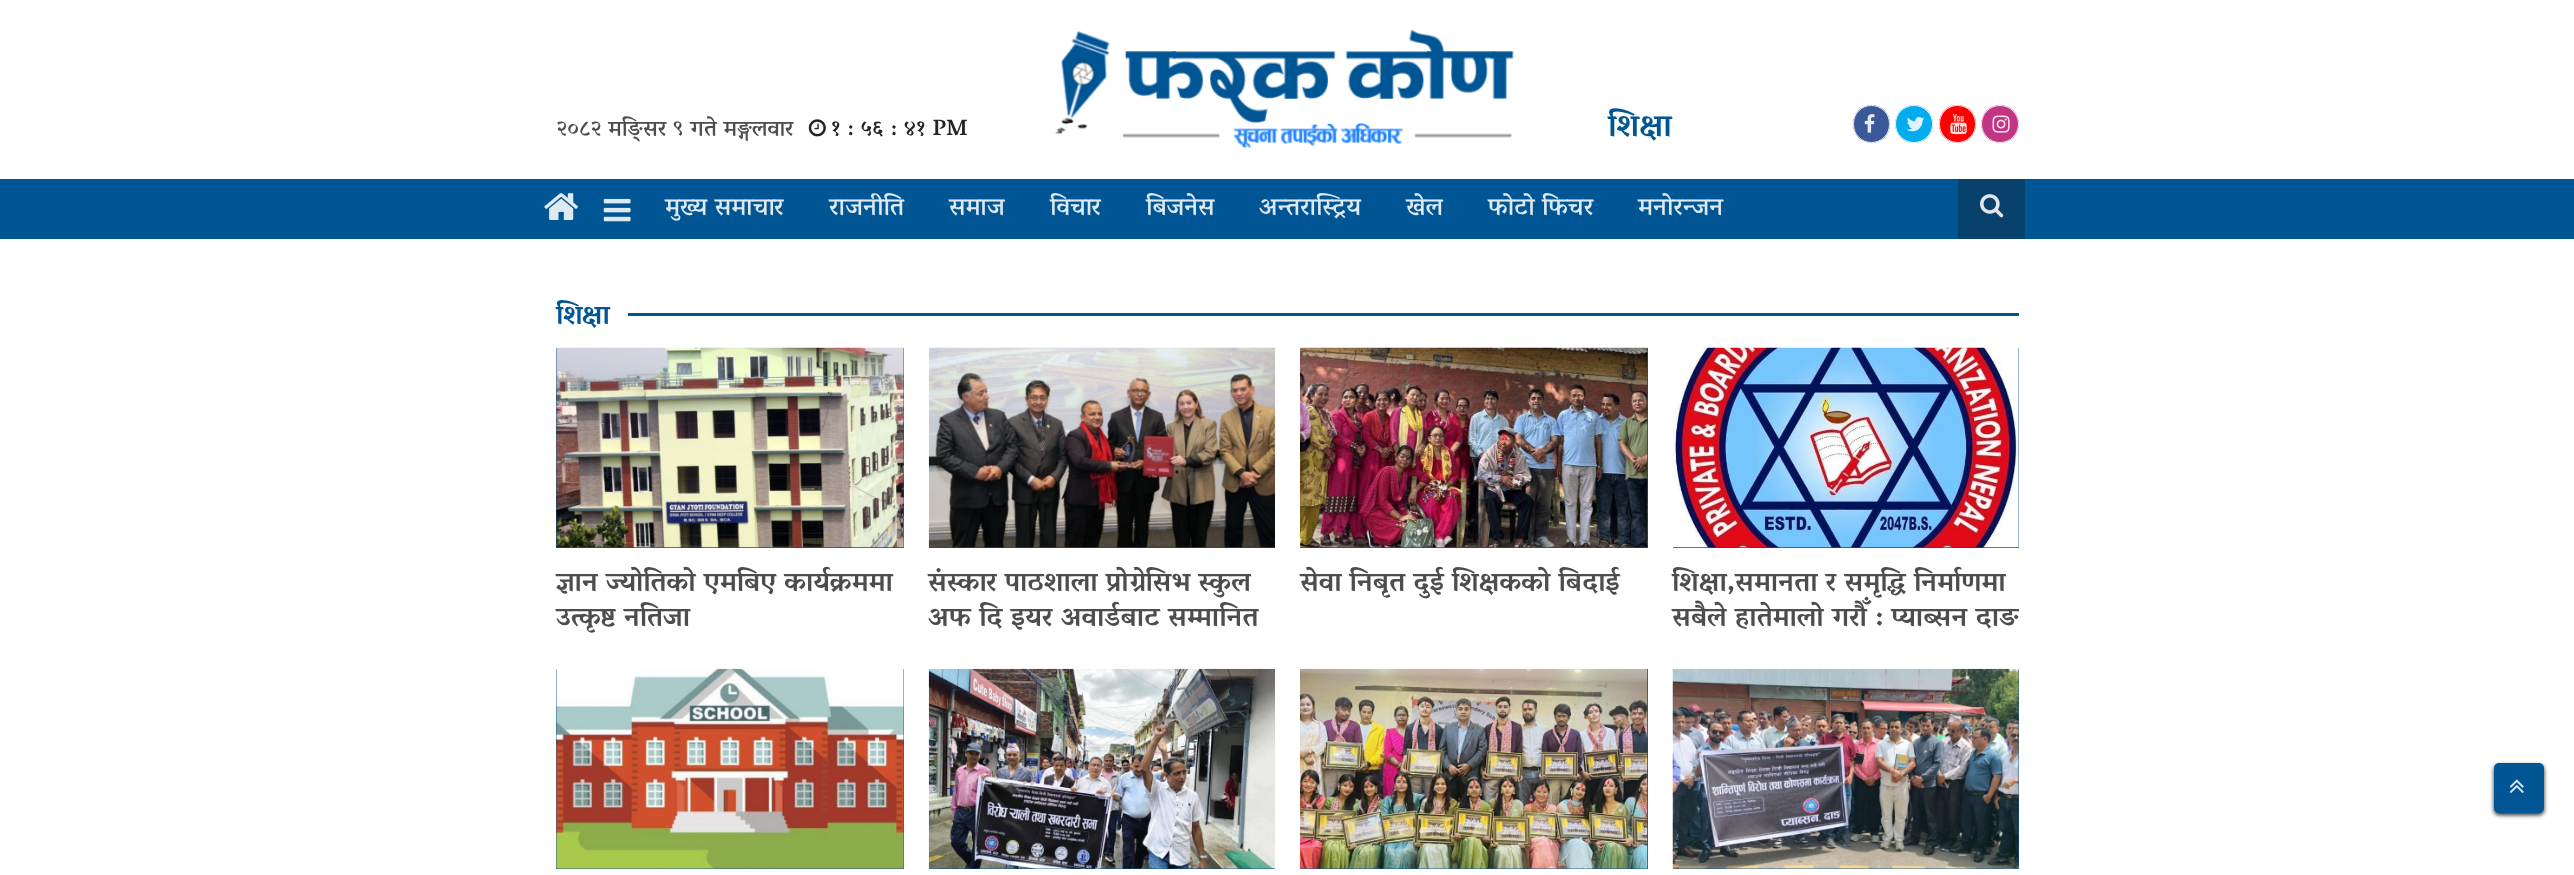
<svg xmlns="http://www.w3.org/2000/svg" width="2574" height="875">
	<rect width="100%" height="100%" fill="#FFFFFF" />
	<text x="556" y="135" font-family="Vesper Libre" font-size="22.5" font-weight="500" fill="#4D4D4D">२०८२ मङ्सिर ९ गते मङ्गलवार</text>
	<image x="808" y="119" width="18" height="18" href="assets/img1.png" />
	<text x="831" y="135" font-family="Vesper Libre" font-size="22.5" font-weight="500" fill="#212529">१ : ५६ : ४१ PM</text>
	<image x="1054" y="29" width="460" height="120" href="assets/img2.png" />
	<text x="1608" y="135" font-family="Vesper Libre" font-size="32" font-weight="700" fill="#005595">शिक्षा</text>
	<rect x="1853" y="105" width="37" height="38" rx="18.5" fill="#3B5998" />
	<rect x="1853.5" y="105.5" width="36" height="37" rx="18" fill="none" stroke="#FFFFFF" stroke-opacity="0.87" />
	<image x="1864" y="114" width="11" height="19" href="assets/img3.png" />
	<circle cx="1914" cy="124" r="19" fill="#00ACEE" />
	<circle cx="1914" cy="124" r="18.5" fill="none" stroke="#FFFFFF" stroke-opacity="0.87" />
	<image x="1907" y="117" width="18" height="15" href="assets/img4.png" />
	<rect x="1939" y="105" width="37" height="38" rx="18.5" fill="#FF0000" />
	<rect x="1939.5" y="105.5" width="36" height="37" rx="18" fill="none" stroke="#FFFFFF" stroke-opacity="0.87" />
	<image x="1950" y="114" width="17" height="21" href="assets/img5.png" />
	<circle cx="2000" cy="124" r="19" fill="#C13584" />
	<circle cx="2000" cy="124" r="18.5" fill="none" stroke="#FFFFFF" stroke-opacity="0.87" />
	<image x="1992" y="115" width="18" height="18" href="assets/img6.png" />
	<rect x="0" y="179" width="2574" height="60" fill="#005595" />
	<image x="544" y="193" width="34" height="27" href="assets/img7.png" />
	<image x="603" y="198" width="28" height="24" href="assets/img8.png" />
	<g font-family="Vesper Libre" font-size="25" font-weight="500" fill="#DEE9F1">
		<text x="665" y="214">मुख्य समाचार</text>
		<text x="829" y="214">राजनीति</text>
		<text x="949" y="214">समाज</text>
		<text x="1050" y="214">विचार</text>
		<text x="1146" y="214">बिजनेस</text>
		<text x="1259" y="214">अन्तरास्ट्रिय</text>
		<text x="1406" y="214">खेल</text>
		<text x="1488" y="214">फोटो फिचर</text>
		<text x="1638" y="214">मनोरन्जन</text>
	</g>
	<rect x="1958" y="179" width="67" height="60" fill="#08416B" />
	<image x="1980" y="194" width="24" height="24" href="assets/img9.png" />
	<text x="556" y="323" font-family="Vesper Libre" font-size="27.5" font-weight="700" letter-spacing="-1" fill="#005595">शिक्षा</text>
	<rect x="628" y="313" width="1391" height="3" fill="#005595" />
	<rect x="556" y="348" width="348" height="200" fill="#005595" />
	<image x="556" y="347" width="348" height="201" href="assets/img10.png" />
	<g font-family="Vesper Libre" font-size="27.5" font-weight="700" fill="#4D4D4D">
		<text x="556" y="590">ज्ञान ज्योतिकाे एमबिए कार्यक्रममा</text>
		<text x="556" y="625">उत्कृष्ट नतिजा</text>
	</g>
	<rect x="929" y="547" width="346" height="1" fill="#005595" />
	<image x="928" y="347" width="347" height="201" href="assets/img11.png" />
	<g font-family="Vesper Libre" font-size="27.5" font-weight="700" fill="#4D4D4D">
		<text x="928" y="590">संस्कार पाठशाला प्रोग्रेसिभ स्कुल</text>
		<text x="928" y="625">अफ दि इयर अवार्डबाट सम्मानित</text>
	</g>
	<rect x="1300" y="348" width="348" height="200" fill="#005595" />
	<image x="1300" y="347" width="348" height="201" href="assets/img12.png" />
	<text x="1300" y="590" font-family="Vesper Libre" font-size="27.5" font-weight="700" fill="#4D4D4D">सेवा निबृत दुई शिक्षकको बिदाई</text>
	<rect x="1673" y="348" width="346" height="200" fill="#005595" />
	<image x="1673" y="347" width="346" height="201" href="assets/img13.png" />
	<g font-family="Vesper Libre" font-size="27.5" font-weight="700" fill="#4D4D4D">
		<text x="1672" y="590">शिक्षा,समानता र समृद्धि निर्माणमा</text>
		<text x="1672" y="625">सबैले हातेमालो गरौँ : प्याब्सन दाङ</text>
	</g>
	<rect x="556" y="669" width="348" height="200" fill="#005595" />
	<image x="556" y="668" width="348" height="201" href="assets/img14.png" />
	<rect x="929" y="868" width="346" height="1" fill="#005595" />
	<image x="928" y="668" width="347" height="201" href="assets/img15.png" />
	<rect x="1300" y="669" width="348" height="200" fill="#005595" />
	<image x="1300" y="668" width="348" height="201" href="assets/img16.png" />
	<rect x="1673" y="669" width="346" height="200" fill="#005595" />
	<image x="1672" y="668" width="347" height="201" href="assets/img17.png" />
	<rect x="2494" y="765" width="50" height="50" rx="5" fill="#212529" filter="blur(2px)" />
	<rect x="2494" y="763" width="50" height="50" rx="5" fill="#005595" />
	<image x="2509" y="779" width="15" height="14" href="assets/img18.png" />
</svg>
